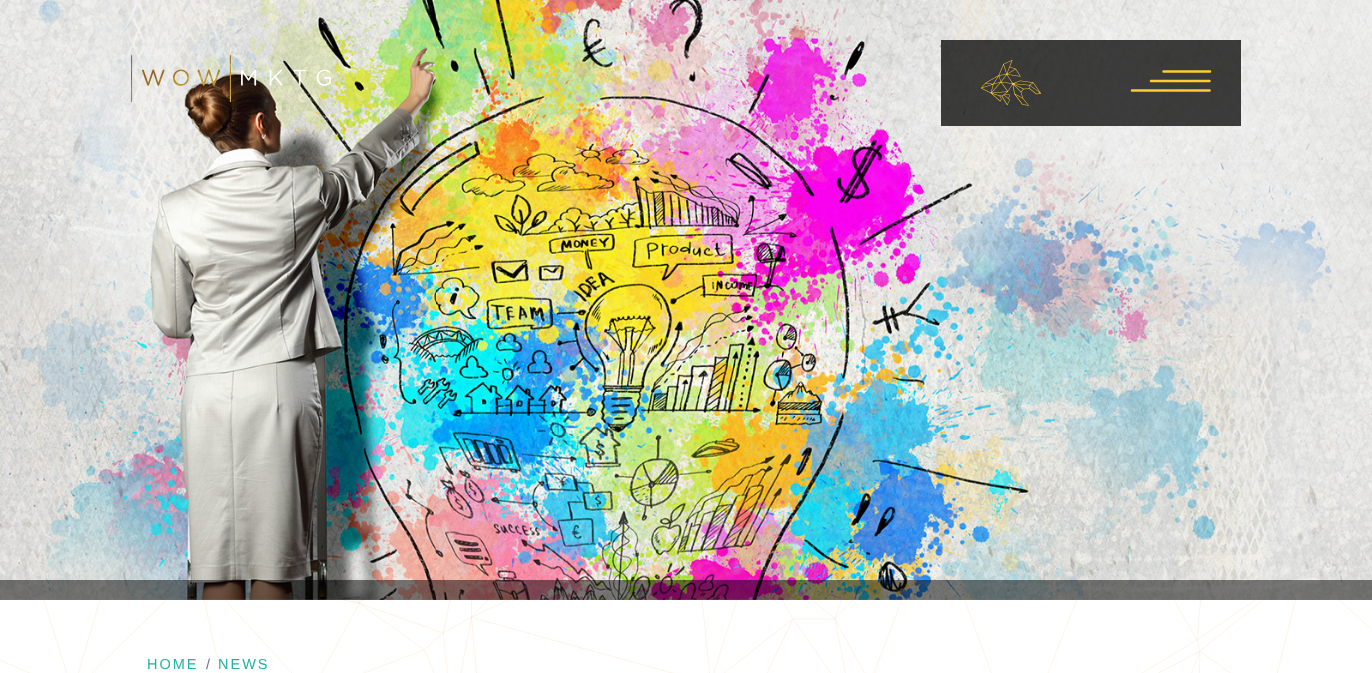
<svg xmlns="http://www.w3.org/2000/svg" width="1372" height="673">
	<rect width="100%" height="100%" fill="#FFFFFF" />
	<image x="0" y="0" width="1372" height="600" href="assets/img1.png" />
	<rect x="0" y="580" width="1372" height="20" fill="#000000" fill-opacity="0.5" />
	<image x="131" y="55" width="200" height="47" href="assets/img2.png" />
	<rect x="941" y="40" width="300" height="86" fill="#000000" fill-opacity="0.75" />
	<image x="981" y="60" width="60" height="46" href="assets/img3.png" />
	<path d="M1163.5 71.5H1210M1151 81H1209.5" fill="none" stroke="#FFCC32" stroke-width="2.5" stroke-linecap="round" />
	<path d="M1132 90.5H1209.5" fill="none" stroke="#FFCC32" stroke-width="2.5" stroke-linecap="round" />
	<image x="0" y="600" width="1372" height="73" href="assets/img4.png" />
	<text x="147" y="669" font-family="Liberation Sans" font-size="14.5" letter-spacing="2" fill="#22B2A3">HOME</text>
	<text x="206" y="669" font-family="Liberation Sans" font-size="14.5" fill="#6C757D">/</text>
	<text x="218" y="669" font-family="Liberation Sans" font-size="14.5" letter-spacing="2" fill="#22B2A3">NEWS</text>
</svg>
